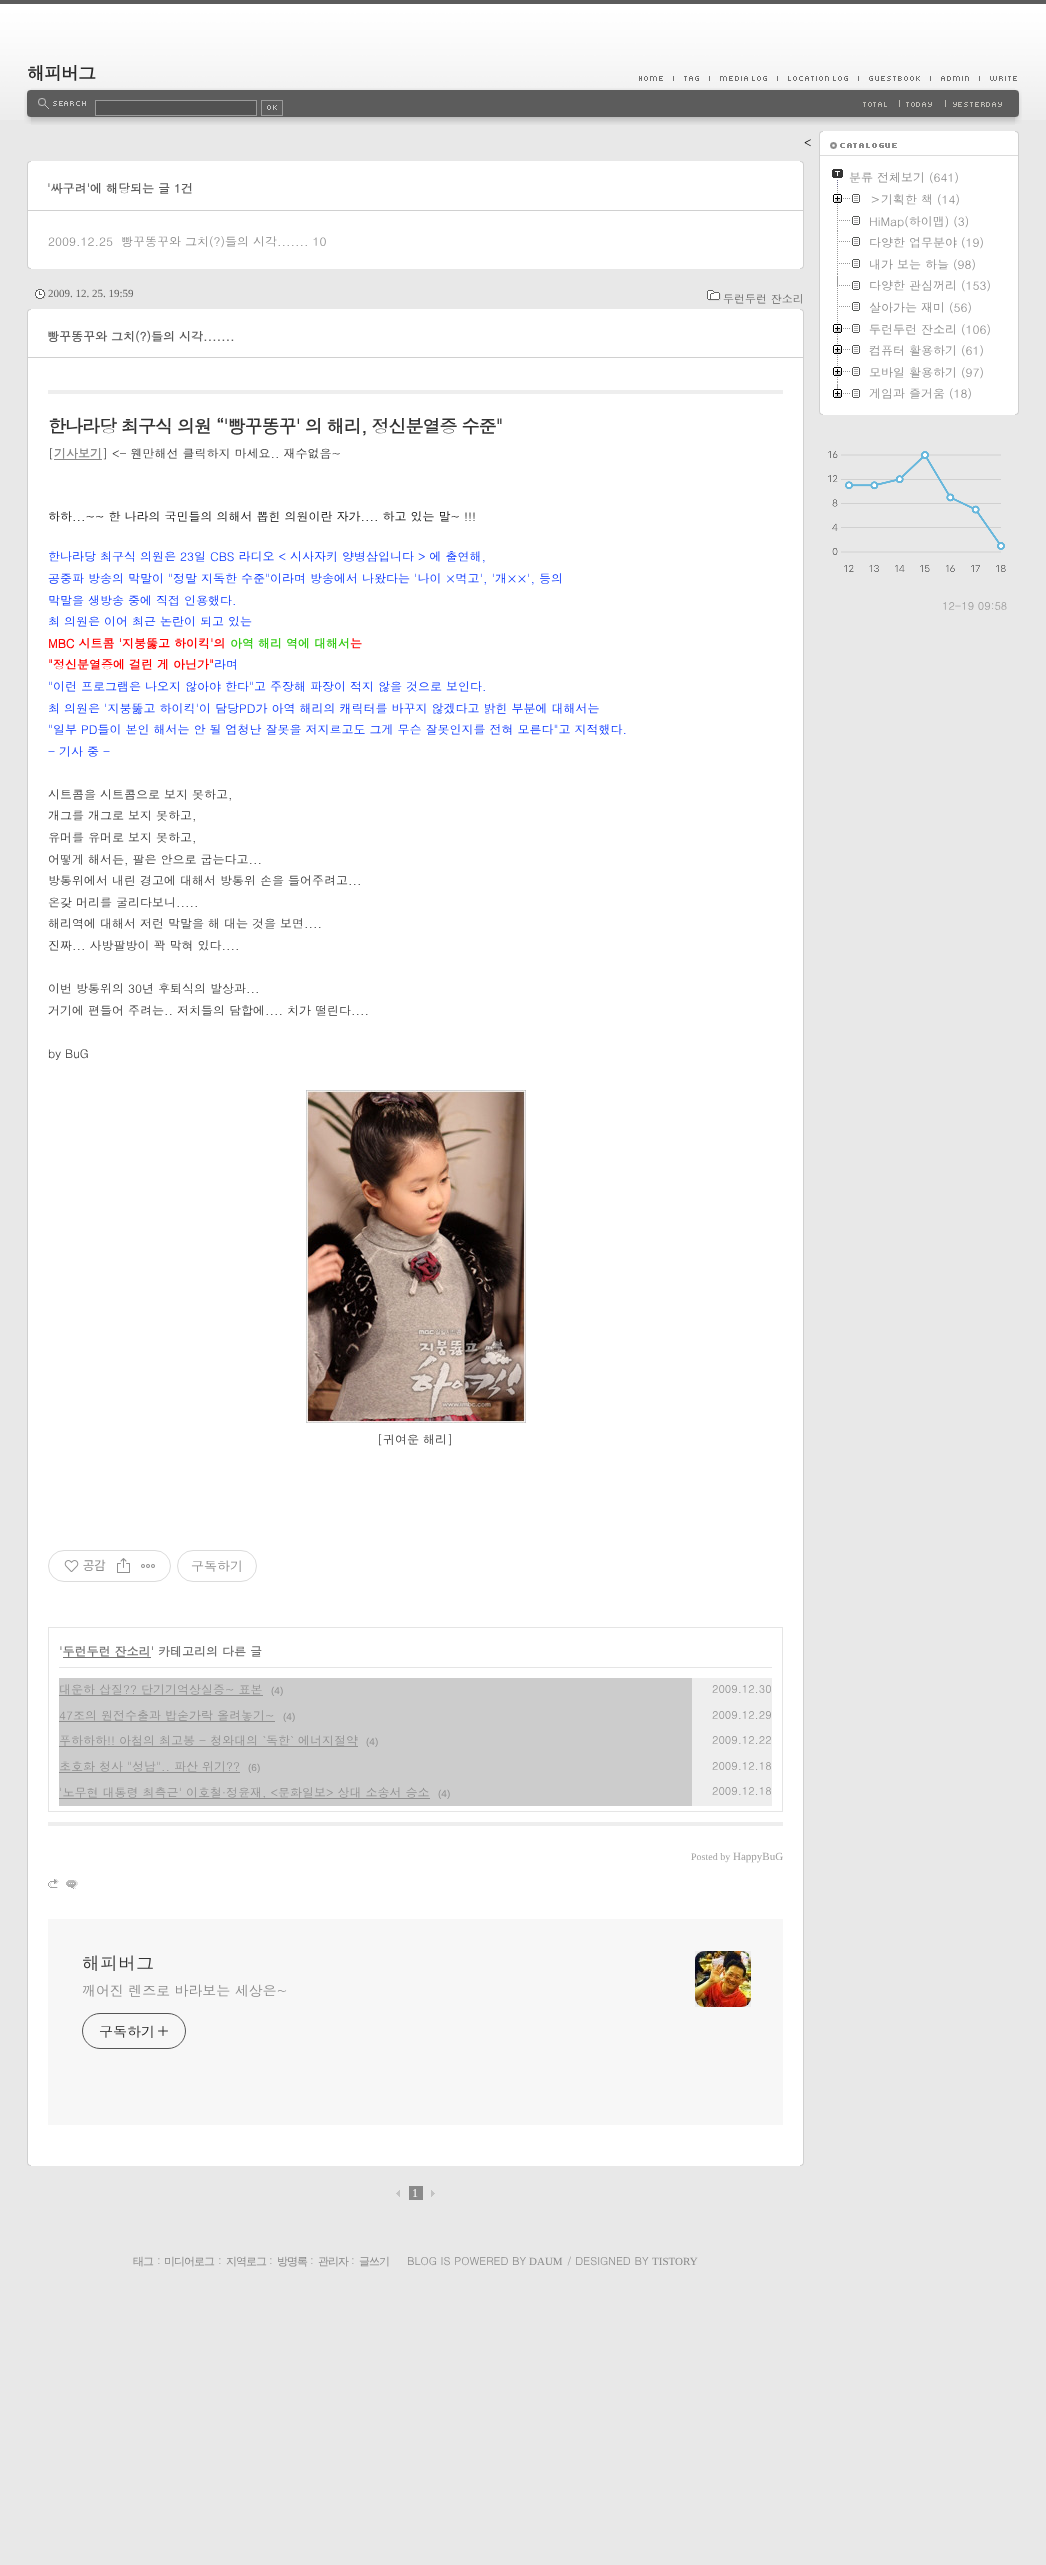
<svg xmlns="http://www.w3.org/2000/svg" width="1046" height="2565">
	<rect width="100%" height="100%" fill="#E8E8E8" />
	<rect x="0" y="0" width="1046" height="4" fill="#5C5C5C" />
	<image x="0" y="4" width="1046" height="116" href="assets/img1.png" />
	<text x="27" y="80" font-family="Dotum" font-size="18" font-weight="700" letter-spacing="-1" fill="#2A2A2A">해피버그</text>
	<image x="639" y="76" width="24" height="5" href="assets/img2.png" />
	<image x="673" y="76" width="26" height="5" href="assets/img3.png" />
	<image x="709" y="76" width="58" height="5" href="assets/img4.png" />
	<image x="777" y="76" width="71" height="5" href="assets/img5.png" />
	<image x="858" y="76" width="62" height="5" href="assets/img6.png" />
	<image x="930" y="76" width="39" height="5" href="assets/img7.png" />
	<image x="979" y="76" width="38" height="5" href="assets/img8.png" />
	<image x="24" y="89" width="7" height="35" href="assets/img9.png" />
	<image x="31" y="88" width="984" height="37" href="assets/img10.png" />
	<image x="38" y="98" width="48" height="11" href="assets/img11.png" />
	<rect x="95.5" y="100.5" width="161" height="15" fill="#515151" stroke="#9A9A9A" />
	<image x="261" y="100" width="22" height="16" href="assets/img12.png" />
	<image x="863" y="102" width="24" height="5" href="assets/img13.png" />
	<image x="899" y="100" width="33" height="7" href="assets/img14.png" />
	<image x="945" y="100" width="57" height="7" href="assets/img15.png" />
	<image x="1015" y="89" width="7" height="35" href="assets/img16.png" />
	<text x="804" y="147" font-family="Dotum" font-size="12" fill="#000000">&lt;</text>
	<image x="27" y="161" width="4" height="4" href="assets/img17.png" />
	<rect x="31" y="161" width="769" height="4" fill="#FFFFFF" />
	<image x="800" y="161" width="4" height="4" href="assets/img18.png" />
	<rect x="28" y="165" width="775" height="100" fill="#FFFFFF" />
	<rect x="803" y="165" width="1" height="100" fill="#D0D0D0" />
	<rect x="27" y="165" width="1" height="100" fill="#D0D0D0" />
	<rect x="28" y="210" width="775" height="1" fill="#D0D0D0" />
	<text x="47" y="193" font-family="Dotum" font-size="12" font-weight="700" fill="#5C5C5C">'싸구려'에 해당되는 글 1건</text>
	<g font-family="Dotum" font-size="12" fill="#8A8A8A">
		<text x="48" y="246">2009.12.25</text>
		<text x="121" y="246">빵꾸똥꾸와 그치(?)들의 시각....... 10</text>
	</g>
	<image x="27" y="265" width="4" height="4" href="assets/img19.png" />
	<rect x="31" y="265" width="769" height="4" fill="#FFFFFF" />
	<image x="800" y="265" width="4" height="4" href="assets/img20.png" />
	<image x="35" y="289" width="11" height="10" href="assets/img21.png" />
	<text x="48" y="297" font-family="Liberation Serif" font-size="11" fill="#636362">2009. 12. 25. 19:59</text>
	<image x="707" y="290" width="14" height="11" href="assets/img22.png" />
	<text x="723" y="303" font-family="Dotum" font-size="11" fill="#636362">두런두런 잔소리</text>
	<image x="27" y="309" width="4" height="4" href="assets/img17.png" />
	<rect x="31" y="309" width="769" height="4" fill="#FFFFFF" />
	<image x="800" y="309" width="4" height="4" href="assets/img18.png" />
	<rect x="28" y="313" width="775" height="1849" fill="#FFFFFF" />
	<rect x="803" y="313" width="1" height="1849" fill="#D0D0D0" />
	<rect x="27" y="313" width="1" height="1849" fill="#D0D0D0" />
	<rect x="28" y="357" width="775" height="1" fill="#D0D0D0" />
	<text x="47" y="341" font-family="Dotum" font-size="12" font-weight="700" fill="#5C5C5C">빵꾸똥꾸와 그치(?)들의 시각.......</text>
	<rect x="48" y="390" width="735" height="4" fill="#EEEEEE" />
	<text x="48" y="433" font-family="Dotum" font-size="18" font-weight="700" letter-spacing="-1" fill="#333333">한나라당 최구식 의원 “'빵꾸똥꾸' 의 해리, 정신분열증 수준"</text>
	<text x="48" y="458" font-family="Dotum" font-size="12" fill="#333333">[</text>
	<text x="54" y="458" font-family="Dotum" font-size="12" font-weight="700" fill="#8A8A8A">기사보기</text>
	<rect x="54" y="459" width="48" height="1" fill="#8A8A8A" />
	<text x="102" y="458" font-family="Dotum" font-size="12" fill="#333333">] &lt;- 웬만해선 클릭하지 마세요.. 재수없음~</text>
	<text x="48" y="521" font-family="Dotum" font-size="12" fill="#000000">하하...~~ 한 나라의 국민들의 의해서 뽑힌 의원이란 자가.... 하고 있는 말~ !!!</text>
	<g font-family="Dotum" font-size="12" fill="#002FFF">
		<text x="48" y="561">한나라당 최구식 의원은 23일 CBS 라디오 &lt; 시사자키 양병삼입니다 &gt; 에 출연해,</text>
		<text x="48" y="583">공중파 방송의 막말이 "정말 지독한 수준"이라며 방송에서 나왔다는 '나이 ×먹고', '개××', 등의</text>
		<text x="48" y="605">막말을 생방송 중에 직접 인용했다.</text>
		<text x="48" y="626">최 의원은 이어 최근 논란이 되고 있는</text>
	</g>
	<text x="48" y="648" font-family="Dotum" font-size="12" font-weight="700" fill="#FF0000">MBC 시트콤 '지붕뚫고 하이킥'의</text>
	<text x="230" y="648" font-family="Dotum" font-size="12" font-weight="700" fill="#38CC1A">아역 해리 역에 대해서</text>
	<g font-family="Dotum" font-size="12" font-weight="700" fill="#FF0000">
		<text x="350" y="648">는</text>
		<text x="48" y="669">"정신분열증에 걸린 게 아닌가"</text>
	</g>
	<g font-family="Dotum" font-size="12" fill="#002FFF">
		<text x="214" y="669">라며</text>
		<text x="48" y="691">"이런 프로그램은 나오지 않아야 한다"고 주장해 파장이 적지 않을 것으로 보인다.</text>
		<text x="48" y="713">최 의원은 '지붕뚫고 하이킥'이 담당PD가 아역 해리의 캐릭터를 바꾸지 않겠다고 밝힌 부분에 대해서는</text>
		<text x="48" y="734">"일부 PD들이 본인 해서는 안 될 엄청난 잘못을 저지르고도 그게 무슨 잘못인지를 전혀 모른다"고 지적했다.</text>
		<text x="48" y="756">- 기사 중 -</text>
	</g>
	<g font-family="Dotum" font-size="12" fill="#333333">
		<text x="48" y="799">시트콤을 시트콤으로 보지 못하고,</text>
		<text x="48" y="820">개그를 개그로 보지 못하고,</text>
		<text x="48" y="842">유머를 유머로 보지 못하고,</text>
		<text x="48" y="864">어떻게 해서든, 팔은 안으로 굽는다고...</text>
		<text x="48" y="885">방통위에서 내린 경고에 대해서 방통위 손을 들어주려고...</text>
		<text x="48" y="907">온갖 머리를 굴리다보니.....</text>
		<text x="48" y="928">해리역에 대해서 저런 막말을 해 대는 것을 보면....</text>
		<text x="48" y="950">진짜... 사방팔방이 꽉 막혀 있다....</text>
		<text x="48" y="993">이번 방통위의 30년 후퇴식의 발상과...</text>
		<text x="48" y="1015">거기에 편들어 주려는.. 저치들의 담합에.... 치가 떨린다....</text>
		<text x="48" y="1058">by BuG</text>
	</g>
	<image x="306" y="1090" width="220" height="333" href="assets/img23.png" />
	<text x="377" y="1444" font-family="Dotum" font-size="12" fill="#333333">[귀여운 해리]</text>
	<rect x="48.5" y="1550.5" width="122" height="31" rx="15.5" fill="none" stroke="#DCDCDC" />
	<image x="64" y="1560" width="15" height="12" href="assets/img24.png" />
	<text x="83" y="1570" font-family="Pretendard" font-size="13" fill="#8A8A8A">공감</text>
	<image x="117" y="1558" width="13" height="15" href="assets/img25.png" />
	<image x="141" y="1564" width="14" height="4" href="assets/img26.png" />
	<rect x="177.5" y="1550.5" width="79" height="31" rx="15.5" fill="none" stroke="#DCDCDC" />
	<text x="191" y="1571" font-family="Dotum" font-size="13" fill="#8A8A8A">구독하기</text>
	<rect x="48.5" y="1627.5" width="734" height="184" fill="none" stroke="#E5E5E5" />
	<rect x="59" y="1667" width="713" height="1" fill="#E5E5E5" />
	<text x="59" y="1656" font-family="Dotum" font-size="12" font-weight="700" fill="#737373">'두런두런 잔소리' 카테고리의 다른 글</text>
	<rect x="63" y="1657" width="88" height="1" fill="#737373" />
	<rect x="59" y="1678" width="633" height="128" fill="#CCCCCC" />
	<text x="59" y="1694" font-family="Dotum" font-size="12" fill="#909090">대운하 삽질?? 단기기억상실증~ 표본</text>
	<rect x="59" y="1695" width="204" height="1" fill="#909090" />
	<text x="271" y="1694" font-family="Liberation Sans" font-size="10" fill="#909090">(4)</text>
	<rect x="692" y="1678" width="80" height="128" fill="#EEEEEE" />
	<text x="712" y="1693" font-family="Dotum" font-size="11" fill="#909090">2009.12.30</text>
	<text x="59" y="1720" font-family="Dotum" font-size="12" fill="#909090">47조의 원전수출과 밥숟가락 올려놓기~</text>
	<rect x="59" y="1721" width="216" height="1" fill="#909090" />
	<text x="283" y="1720" font-family="Liberation Sans" font-size="10" fill="#909090">(4)</text>
	<text x="712" y="1719" font-family="Dotum" font-size="11" fill="#909090">2009.12.29</text>
	<text x="59" y="1745" font-family="Dotum" font-size="12" fill="#909090">푸하하하!! 아첨의 최고봉 - 청와대의 `독한` 에너지절약</text>
	<rect x="59" y="1746" width="299" height="1" fill="#909090" />
	<text x="366" y="1745" font-family="Liberation Sans" font-size="10" fill="#909090">(4)</text>
	<text x="712" y="1744" font-family="Dotum" font-size="11" fill="#909090">2009.12.22</text>
	<text x="59" y="1771" font-family="Dotum" font-size="12" fill="#909090">초호화 청사 "성남".. 파산 위기??</text>
	<rect x="59" y="1772" width="181" height="1" fill="#909090" />
	<text x="248" y="1771" font-family="Liberation Sans" font-size="10" fill="#909090">(6)</text>
	<text x="712" y="1770" font-family="Dotum" font-size="11" fill="#909090">2009.12.18</text>
	<rect x="59" y="1798" width="371" height="1" fill="#909090" />
	<text x="59" y="1797" font-family="Dotum" font-size="12" fill="#909090">'노무현 대통령 최측근' 이호철·정윤재, &lt;문화일보&gt; 상대 소송서 승소</text>
	<text x="438" y="1797" font-family="Liberation Sans" font-size="10" fill="#909090">(4)</text>
	<text x="712" y="1795" font-family="Dotum" font-size="11" fill="#909090">2009.12.18</text>
	<rect x="48" y="1822" width="735" height="4" fill="#EEEEEE" />
	<text x="691" y="1860" font-family="Liberation Serif" font-size="10" fill="#9F9F9F">Posted by</text>
	<text x="733" y="1860" font-family="Liberation Serif" font-size="11" fill="#9F9F9F">HappyBuG</text>
	<image x="48" y="1879" width="11" height="9" href="assets/img27.png" />
	<image x="66" y="1880" width="12" height="9" href="assets/img28.png" />
	<rect x="48" y="1919" width="735" height="206" fill="#F7F7F7" />
	<text x="82" y="1970" font-family="Dotum" font-size="18" fill="#333333">해피버그</text>
	<text x="82" y="1996" font-family="Dotum" font-size="14" letter-spacing="-0.1" fill="#8A8A8A">깨어진 렌즈로 바라보는 세상은~</text>
	<rect x="82.5" y="2013.5" width="103" height="35" rx="17.5" fill="none" stroke="#555555" />
	<text x="99" y="2037" font-family="Dotum" font-size="14" fill="#222222">구독하기</text>
	<image x="158" y="2026" width="10" height="10" href="assets/img29.png" />
	<image x="695" y="1951" width="56" height="56" href="assets/img30.png" />
	<rect x="695" y="1951" width="56" height="56" fill="#000000" fill-opacity="0.04" />
	<image x="27" y="2162" width="4" height="4" href="assets/img19.png" />
	<rect x="31" y="2162" width="769" height="4" fill="#FFFFFF" />
	<image x="800" y="2162" width="4" height="4" href="assets/img20.png" />
	<image x="396" y="2190" width="4" height="7" href="assets/img31.png" />
	<rect x="409" y="2186" width="14" height="14" fill="#8A8A8A" />
	<text x="412" y="2197" font-family="Liberation Serif" font-size="12" fill="#FFFFFF">1</text>
	<image x="431" y="2190" width="4" height="7" href="assets/img32.png" />
	<text x="133" y="2265" font-family="WenQuanYi Zen Hei" font-size="11" font-weight="500" letter-spacing="-1" fill="#8A8A8A">태그</text>
	<text x="157" y="2265" font-family="Dotum" font-size="11" fill="#8A8A8A">:</text>
	<text x="164" y="2265" font-family="WenQuanYi Zen Hei" font-size="11" font-weight="500" letter-spacing="-1" fill="#8A8A8A">미디어로그</text>
	<text x="218" y="2265" font-family="Dotum" font-size="11" fill="#8A8A8A">:</text>
	<text x="226" y="2265" font-family="WenQuanYi Zen Hei" font-size="11" font-weight="500" letter-spacing="-1" fill="#8A8A8A">지역로그</text>
	<text x="269" y="2265" font-family="Dotum" font-size="11" fill="#8A8A8A">:</text>
	<text x="277" y="2265" font-family="WenQuanYi Zen Hei" font-size="11" font-weight="500" letter-spacing="-1" fill="#8A8A8A">방명록</text>
	<text x="310" y="2265" font-family="Dotum" font-size="11" fill="#8A8A8A">:</text>
	<text x="318" y="2265" font-family="WenQuanYi Zen Hei" font-size="11" font-weight="500" letter-spacing="-1" fill="#8A8A8A">관리자</text>
	<text x="351" y="2265" font-family="Dotum" font-size="11" fill="#8A8A8A">:</text>
	<text x="359" y="2265" font-family="WenQuanYi Zen Hei" font-size="11" font-weight="500" letter-spacing="-1" fill="#8A8A8A">글쓰기</text>
	<text x="407" y="2265" font-family="Dotum" font-size="11" fill="#8A8A8A">BLOG IS POWERED BY</text>
	<text x="529" y="2265" font-family="Liberation Serif" font-size="11" fill="#8A8A8A">DAUM</text>
	<text x="567" y="2265" font-family="Dotum" font-size="11" fill="#8A8A8A">/ DESIGNED BY</text>
	<text x="652" y="2265" font-family="Liberation Serif" font-size="11" fill="#8A8A8A">TISTORY</text>
	<image x="819" y="131" width="4" height="4" href="assets/img17.png" />
	<rect x="823" y="131" width="192" height="4" fill="#FFFFFF" />
	<image x="1015" y="131" width="4" height="4" href="assets/img18.png" />
	<rect x="820" y="135" width="198" height="276" fill="#FFFFFF" />
	<rect x="1018" y="135" width="1" height="276" fill="#D0D0D0" />
	<rect x="819" y="135" width="1" height="276" fill="#D0D0D0" />
	<image x="830" y="142" width="67" height="7" href="assets/img33.png" />
	<rect x="820" y="155" width="198" height="1" fill="#DCDCDC" />
	<image x="832" y="169" width="11" height="18" href="assets/img34.png" />
	<text x="849" y="182" font-family="Dotum" font-size="12" fill="#8A8A8A">분류 전체보기 (641)</text>
	<image x="837" y="188" width="1" height="21" href="assets/img35.png" />
	<image x="833" y="194" width="27" height="9" href="assets/img36.png" />
	<text x="869" y="204" font-family="Dotum" font-size="12" fill="#8A8A8A">＞기획한 책 (14)</text>
	<image x="837" y="210" width="1" height="21" href="assets/img35.png" />
	<image x="839" y="216" width="21" height="9" href="assets/img37.png" />
	<text x="869" y="226" font-family="Dotum" font-size="12" fill="#8A8A8A">HiMap(하이맵) (3)</text>
	<image x="837" y="231" width="1" height="21" href="assets/img35.png" />
	<image x="839" y="237" width="21" height="9" href="assets/img37.png" />
	<text x="869" y="247" font-family="Dotum" font-size="12" fill="#8A8A8A">다양한 업무분야 (19)</text>
	<image x="837" y="253" width="1" height="21" href="assets/img35.png" />
	<image x="839" y="259" width="21" height="9" href="assets/img37.png" />
	<text x="869" y="269" font-family="Dotum" font-size="12" fill="#8A8A8A">내가 보는 하늘 (98)</text>
	<image x="837" y="274" width="1" height="21" href="assets/img35.png" />
	<image x="837" y="277" width="23" height="13" href="assets/img38.png" />
	<text x="869" y="290" font-family="Dotum" font-size="12" fill="#8A8A8A">다양한 관심꺼리 (153)</text>
	<image x="837" y="296" width="1" height="21" href="assets/img35.png" />
	<image x="839" y="302" width="21" height="9" href="assets/img37.png" />
	<text x="869" y="312" font-family="Dotum" font-size="12" fill="#8A8A8A">살아가는 재미 (56)</text>
	<image x="837" y="318" width="1" height="21" href="assets/img35.png" />
	<image x="833" y="324" width="27" height="9" href="assets/img36.png" />
	<text x="869" y="334" font-family="Dotum" font-size="12" fill="#8A8A8A">두런두런 잔소리 (106)</text>
	<image x="837" y="339" width="1" height="21" href="assets/img35.png" />
	<image x="833" y="345" width="27" height="9" href="assets/img36.png" />
	<text x="869" y="355" font-family="Dotum" font-size="12" fill="#8A8A8A">컴퓨터 활용하기 (61)</text>
	<image x="837" y="361" width="1" height="21" href="assets/img35.png" />
	<image x="833" y="367" width="27" height="9" href="assets/img36.png" />
	<text x="869" y="377" font-family="Dotum" font-size="12" fill="#8A8A8A">모바일 활용하기 (97)</text>
	<image x="837" y="382" width="1" height="7" href="assets/img39.png" />
	<image x="833" y="385" width="27" height="13" href="assets/img40.png" />
	<text x="869" y="398" font-family="Dotum" font-size="12" fill="#8A8A8A">게임과 즐거움 (18)</text>
	<image x="819" y="411" width="4" height="4" href="assets/img19.png" />
	<rect x="823" y="411" width="192" height="4" fill="#FFFFFF" />
	<image x="1015" y="411" width="4" height="4" href="assets/img20.png" />
	<image x="828" y="451" width="178" height="121" href="assets/img41.png" />
	<text x="942" y="610" font-family="Dotum" font-size="11" fill="#999999">12-19 09:58</text>
</svg>
